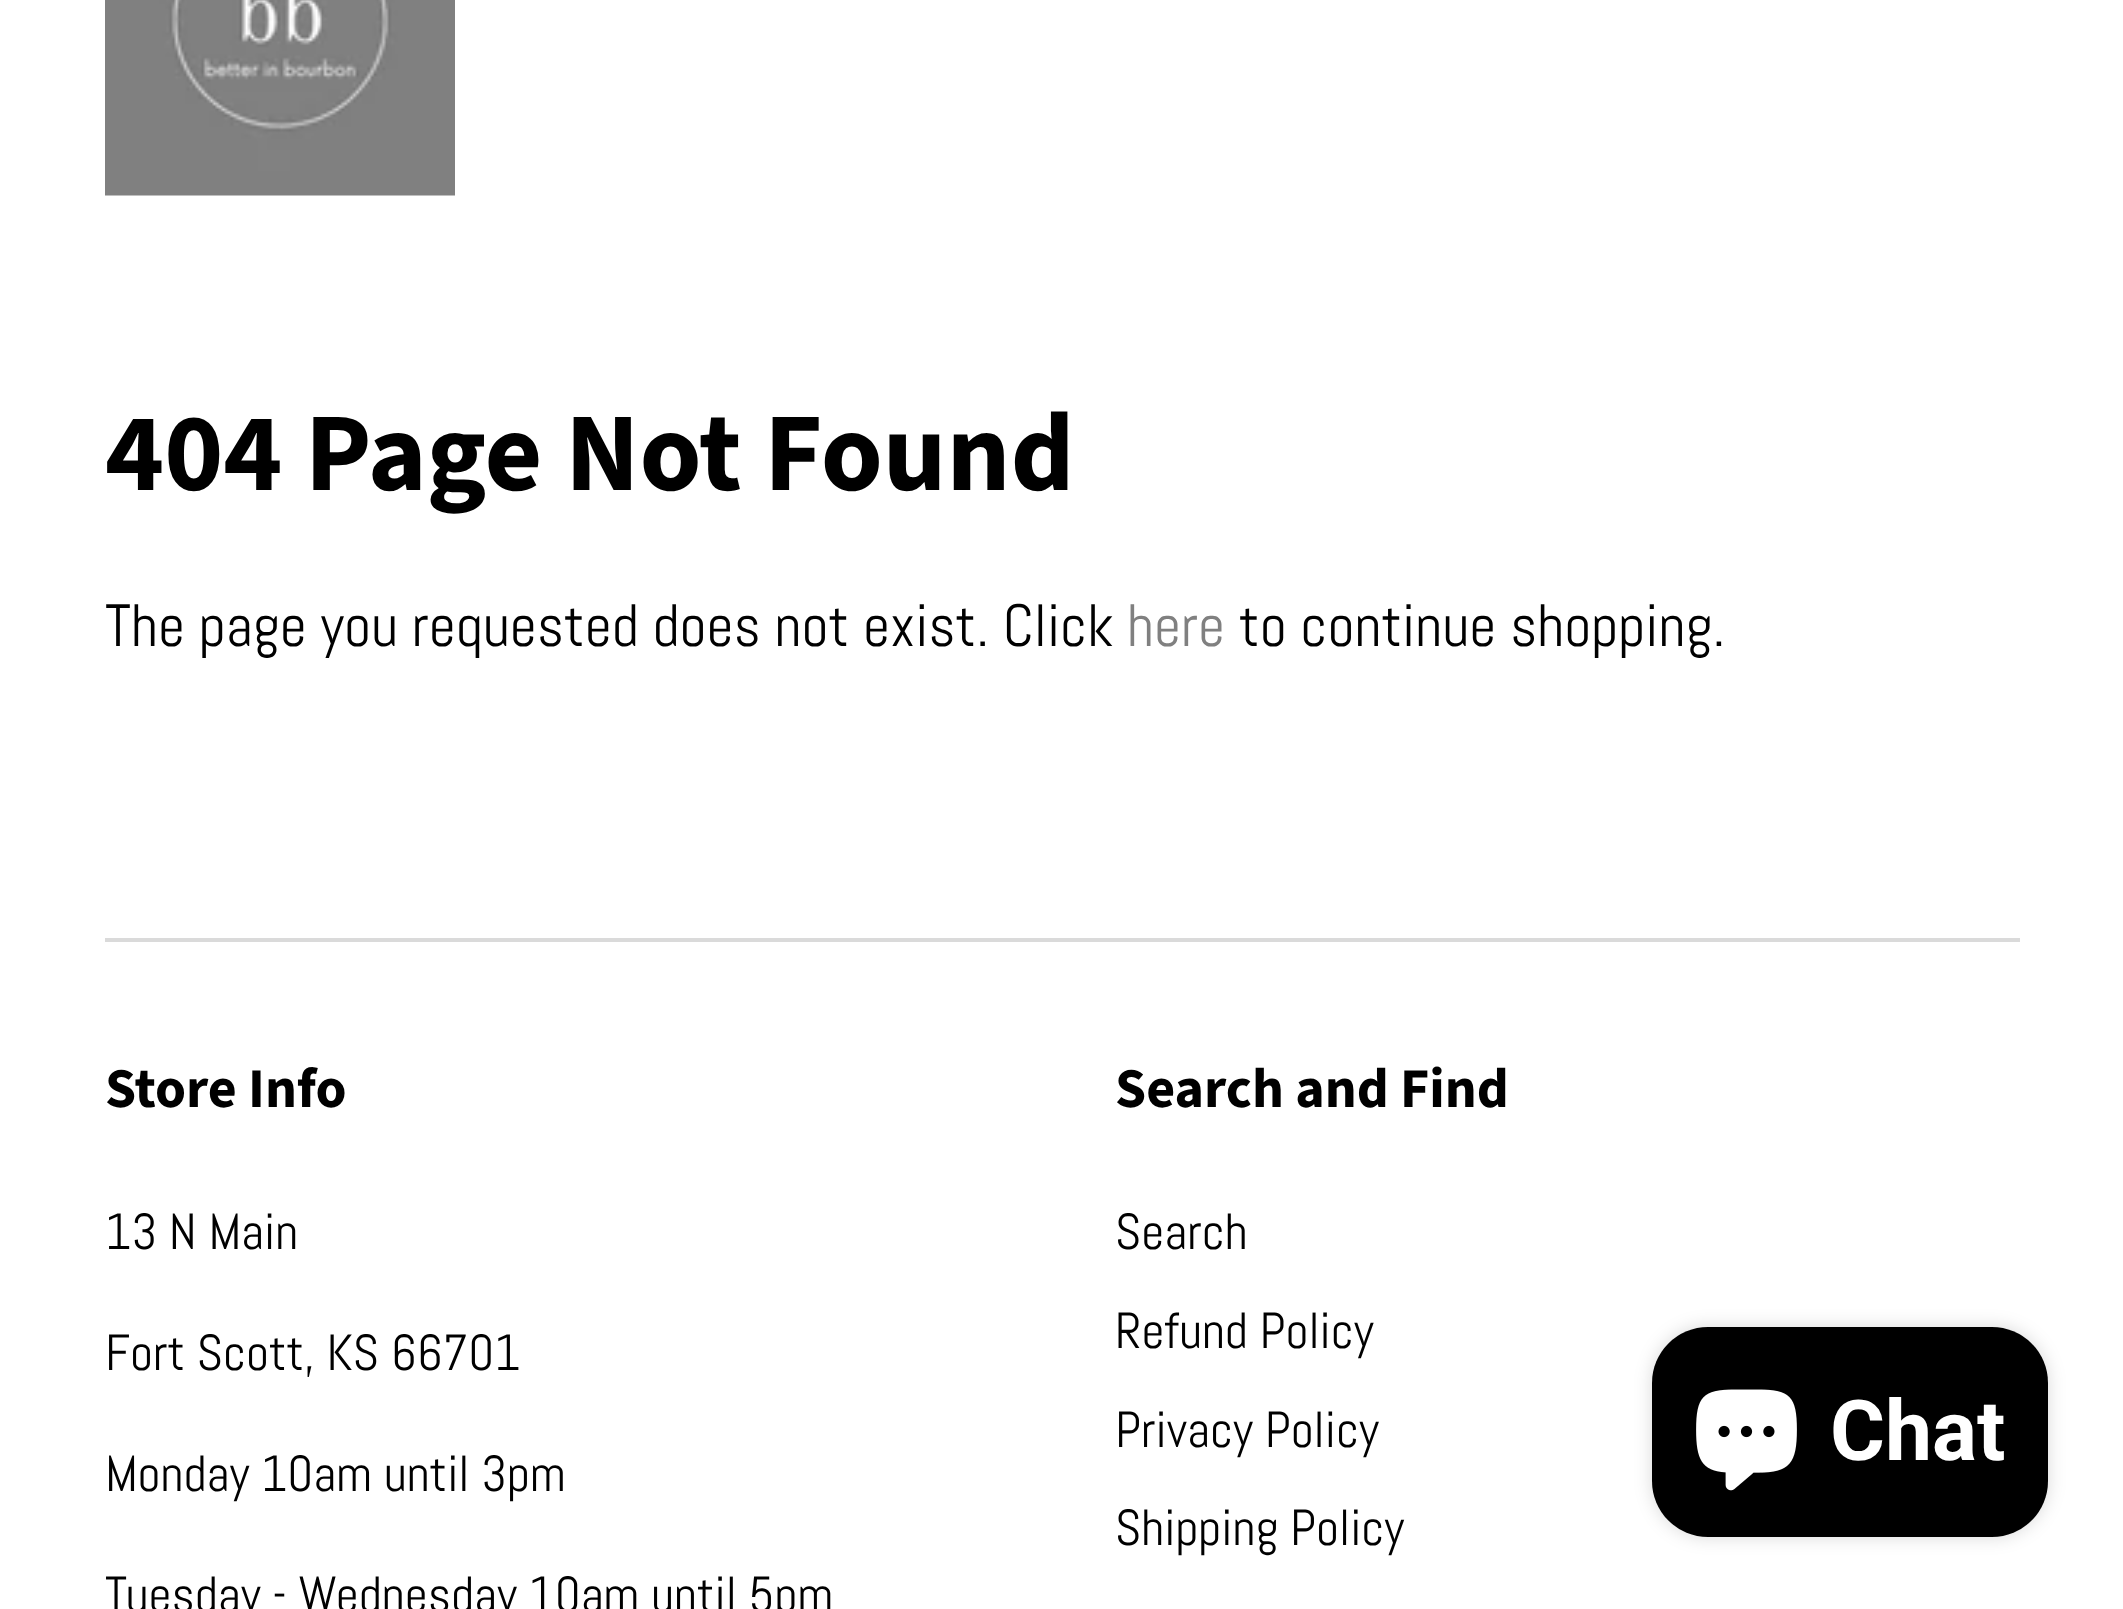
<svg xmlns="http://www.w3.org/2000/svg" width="2123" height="1609">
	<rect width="100%" height="100%" fill="#FFFFFF" />
	<image x="105" y="0" width="350" height="196" href="assets/img1.png" />
	<text x="105" y="490" font-family="Source Sans Pro" font-size="112" font-weight="700" fill="#000000">404 Page Not Found</text>
	<text x="105" y="646" font-family="Abel" font-size="59.5" fill="#000000">The page you requested does not exist. Click</text>
	<text x="1127" y="646" font-family="Abel" font-size="59.5" fill="#808080">here</text>
	<text x="1239" y="646" font-family="Abel" font-size="59.5" fill="#000000">to continue shopping.</text>
	<rect x="105" y="938" width="1915" height="4" fill="#DADADA" />
	<text x="105" y="1107" font-family="Source Sans Pro" font-size="56" font-weight="700" fill="#000000">Store Info</text>
	<g font-family="Abel" font-size="50.6" fill="#000000">
		<text x="105" y="1249">13 N Main</text>
		<text x="105" y="1370">Fort Scott, KS 66701</text>
		<text x="105" y="1491">Monday 10am until 3pm</text>
		<text x="105" y="1612">Tuesday - Wednesday 10am until 5pm</text>
	</g>
	<text x="1115" y="1107" font-family="Source Sans Pro" font-size="56" font-weight="700" fill="#000000">Search and Find</text>
	<g font-family="Abel" font-size="50.6" fill="#000000">
		<text x="1115" y="1249">Search</text>
		<text x="1115" y="1348">Refund Policy</text>
		<text x="1115" y="1447">Privacy Policy</text>
		<text x="1115" y="1545">Shipping Policy</text>
	</g>
	<rect x="1652" y="1327" width="396" height="210" rx="56" fill="#000000" fill-opacity="0.15" filter="blur(9px)" />
	<rect x="1652" y="1327" width="396" height="210" rx="56" fill="#000000" />
	<image x="1696" y="1389" width="101" height="102" href="assets/img2.png" />
	<text x="1830" y="1460" font-family="Roboto" font-size="84" font-weight="700" fill="#FFFFFF">Chat</text>
</svg>
